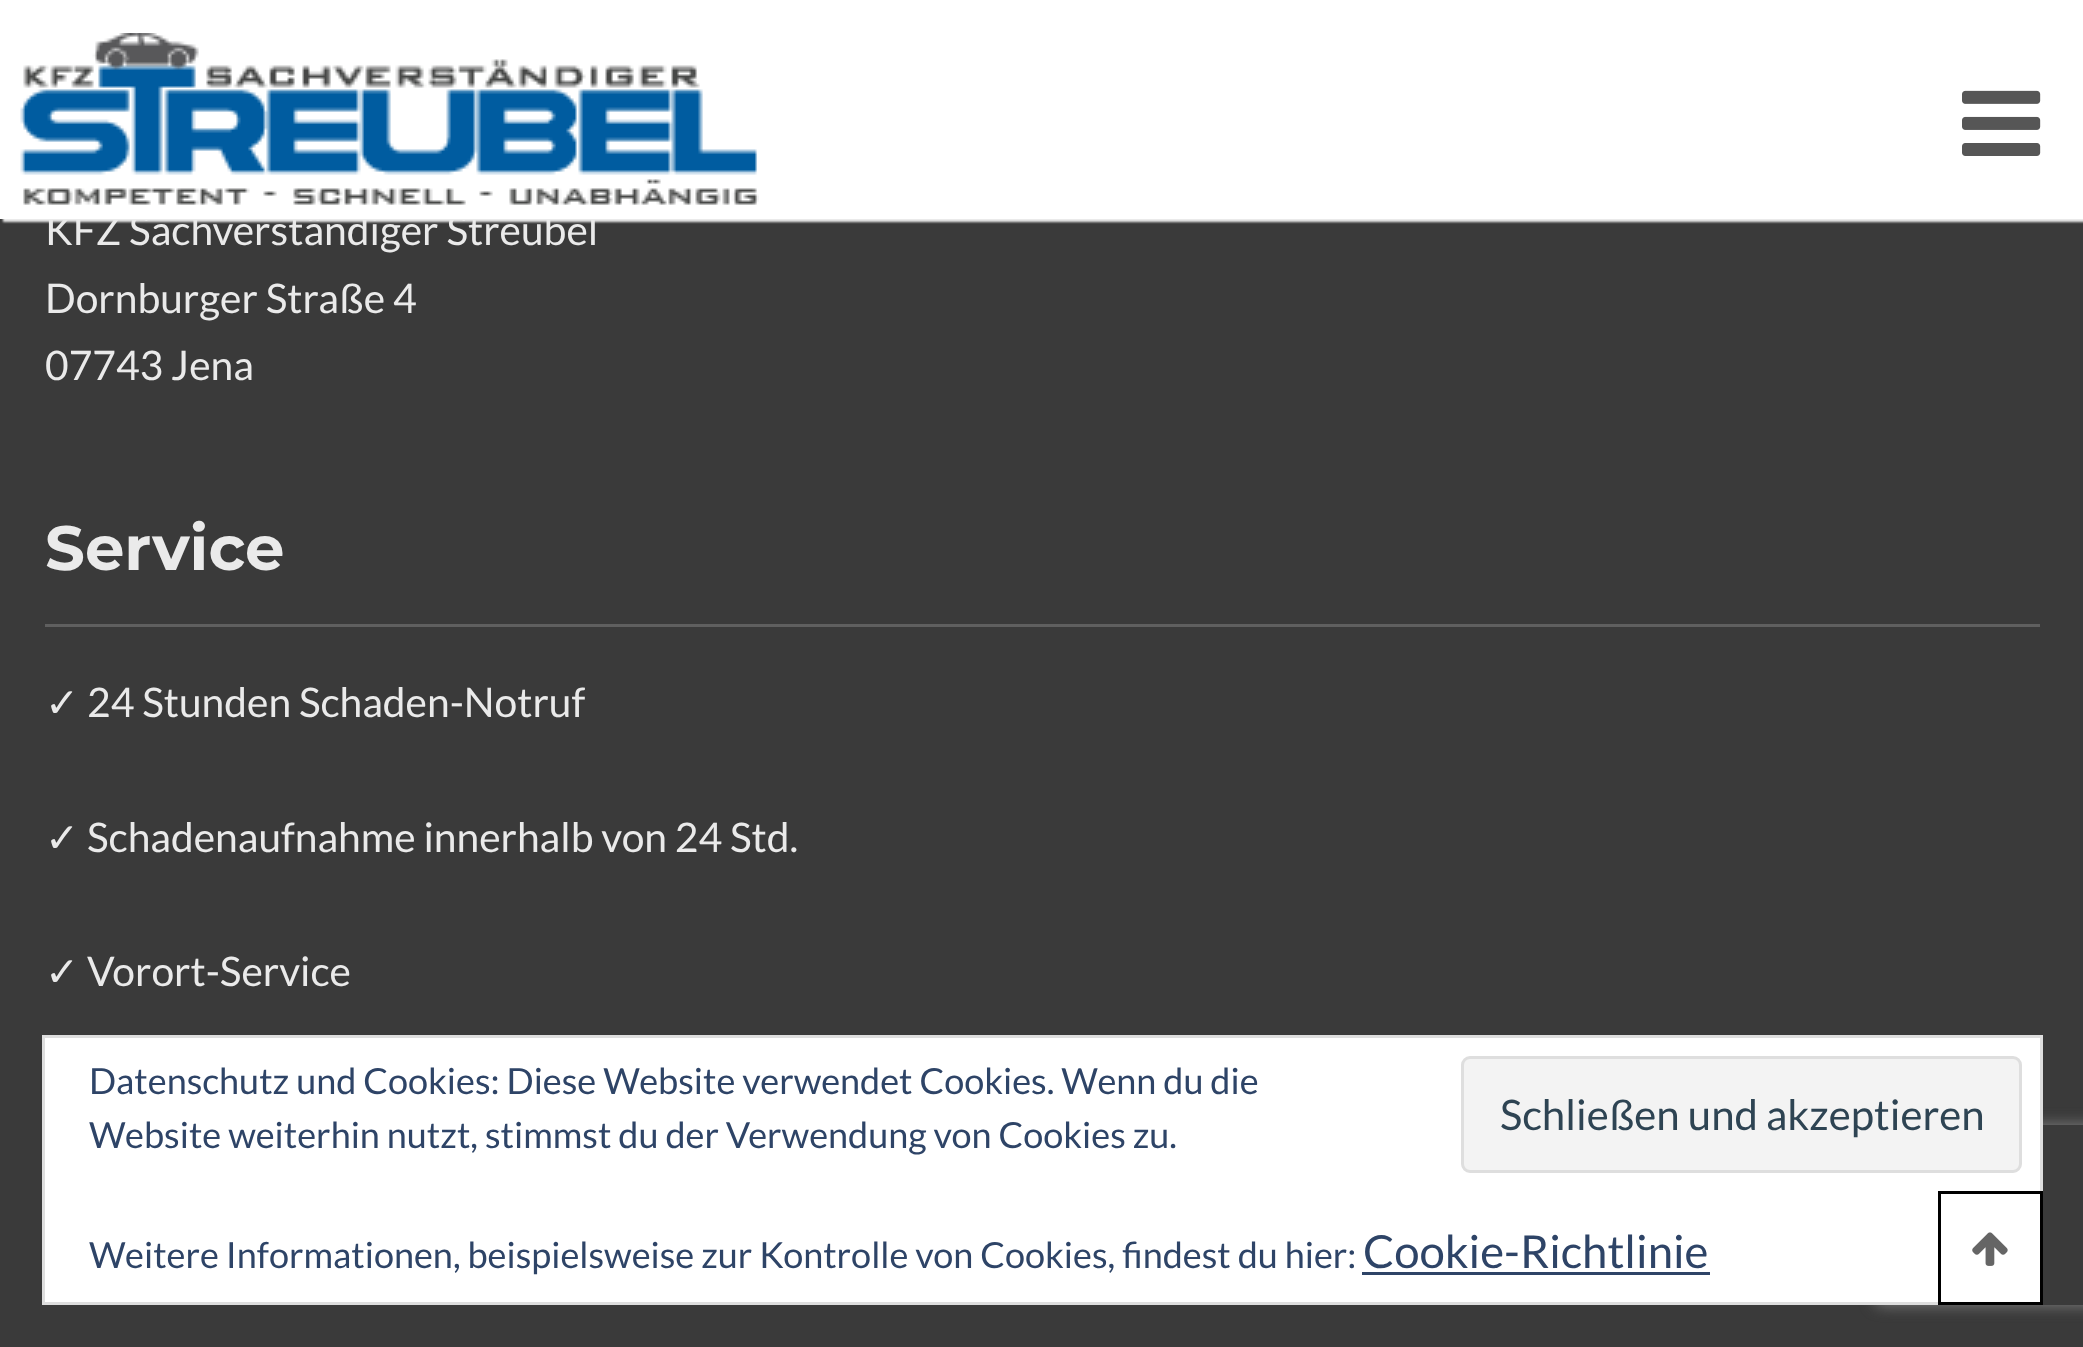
<svg xmlns="http://www.w3.org/2000/svg" width="2083" height="1347">
	<defs>
		<clipPath id="clip1"><path d="M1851 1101H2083V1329H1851ZM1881 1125H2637C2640.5 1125 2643 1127.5 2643 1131V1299C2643 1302.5 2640.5 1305 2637 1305H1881C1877.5 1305 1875 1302.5 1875 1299V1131C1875 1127.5 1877.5 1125 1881 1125Z" clip-rule="evenodd" /></clipPath>
	</defs>
	<rect width="100%" height="100%" fill="#3A3A3A" />
	<rect x="3" y="3" width="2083" height="219" fill="#EAEAEA" filter="blur(1px)" />
	<text x="45" y="245" font-family="Lato" font-size="40.75" fill="#EAEAEA">KFZ Sachverständiger Streubel</text>
	<rect x="0" y="0" width="2083" height="219" fill="#FFFFFF" />
	<image x="20" y="33" width="739" height="172" href="assets/img1.png" />
	<image x="1962" y="90" width="79" height="66" href="assets/img2.png" />
	<g font-family="Lato" font-size="40.75" fill="#EAEAEA">
		<text x="45" y="313">Dornburger Straße 4</text>
		<text x="45" y="380">07743 Jena</text>
	</g>
	<text x="45" y="570" font-family="Montserrat" font-size="62.5" font-weight="700" fill="#EAEAEA">Service</text>
	<rect x="45" y="624" width="1995" height="3" fill="#5F5F5F" />
	<text x="45" y="717" font-family="DejaVu Sans" font-size="40.75" fill="#EAEAEA">✓</text>
	<text x="87" y="717" font-family="Lato" font-size="40.75" fill="#EAEAEA">24 Stunden Schaden-Notruf</text>
	<text x="45" y="852" font-family="DejaVu Sans" font-size="40.75" fill="#EAEAEA">✓</text>
	<text x="87" y="852" font-family="Lato" font-size="40.75" fill="#EAEAEA">Schadenaufnahme innerhalb von 24 Std.</text>
	<text x="45" y="986" font-family="DejaVu Sans" font-size="40.75" fill="#EAEAEA">✓</text>
	<text x="87" y="986" font-family="Lato" font-size="40.75" fill="#EAEAEA">Vorort-Service</text>
	<g clip-path="url(#clip1)">
		<rect x="1875" y="1125" width="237" height="180" rx="6" fill="#808080" filter="blur(7.5px)" />
	</g>
	<rect x="43.5" y="1036.5" width="1998" height="267" fill="#FFFFFF" stroke="#DEDEDE" stroke-width="3" />
	<g font-family="Lato" font-size="36" fill="#2E4467">
		<text x="89" y="1094">Datenschutz und Cookies: Diese Website verwendet Cookies. Wenn du die</text>
		<text x="89" y="1148">Website weiterhin nutzt, stimmst du der Verwendung von Cookies zu.</text>
	</g>
	<rect x="1462.5" y="1057.5" width="558" height="114" rx="7.5" fill="#F3F3F3" stroke="#DEDEDE" stroke-width="3" />
	<text x="1500" y="1130" font-family="Lato" font-size="42" fill="#2E4453">Schließen und akzeptieren</text>
	<text x="89" y="1268" font-family="Lato" font-size="36" fill="#2E4467">Weitere Informationen, beispielsweise zur Kontrolle von Cookies, findest du hier:</text>
	<text x="1363" y="1268" font-family="Lato" font-size="45.5" fill="#2E4467">Cookie-Richtlinie</text>
	<rect x="1362" y="1272" width="348" height="3" fill="#2E4467" />
	<rect x="1939.5" y="1192.5" width="102" height="111" fill="none" stroke="#000000" stroke-width="3" />
	<image x="1972" y="1232" width="36" height="34" href="assets/img3.png" />
</svg>
